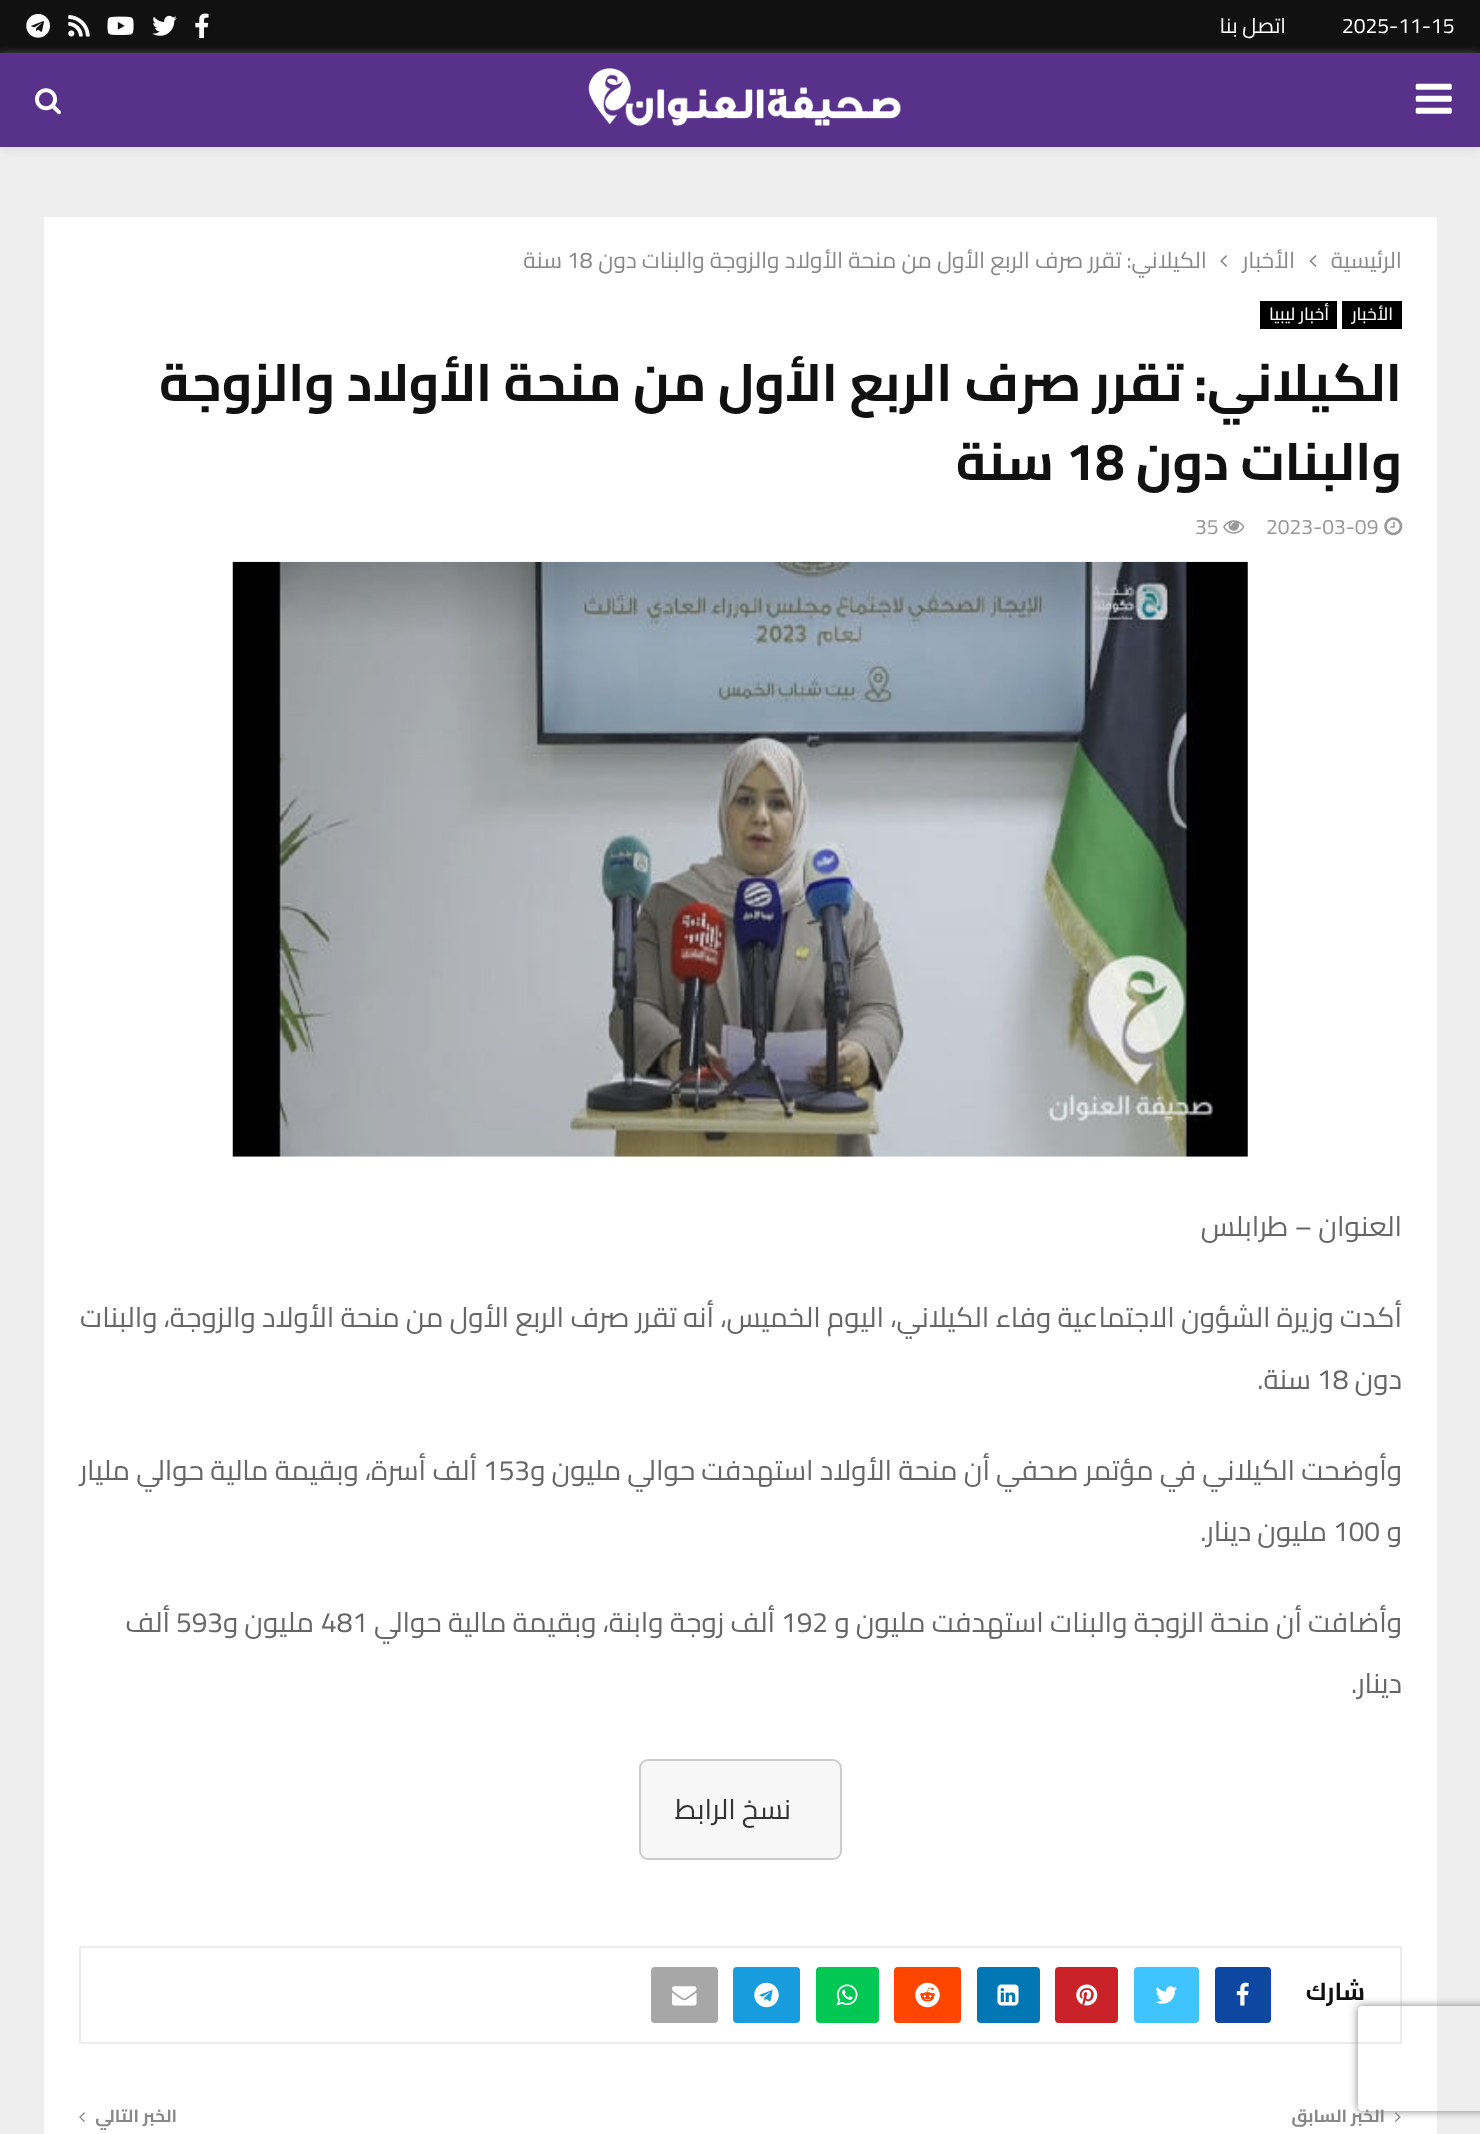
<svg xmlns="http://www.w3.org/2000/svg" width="1480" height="2134">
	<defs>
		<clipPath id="clip1"><path d="M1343 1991H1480V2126H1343ZM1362 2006H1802C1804 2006 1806 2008 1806 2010V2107C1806 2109 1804 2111 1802 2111H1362C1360 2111 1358 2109 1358 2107V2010C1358 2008 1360 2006 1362 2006Z" clip-rule="evenodd" /></clipPath>
	</defs>
	<rect width="100%" height="100%" fill="#EEEEEE" />
	<rect x="0" y="0" width="1480" height="53" fill="#111111" />
	<text x="1342" y="33" font-family="Cairo" font-size="21" fill="#FFFFFF">2025-11-15</text>
	<text x="1286" y="33" font-family="Cairo" font-size="21" direction="rtl" fill="#FFFFFF">اتصل بنا</text>
	<image x="195" y="13" width="14" height="26" href="assets/img1.png" />
	<image x="152" y="15" width="25" height="21" href="assets/img2.png" />
	<image x="107" y="16" width="27" height="19" href="assets/img3.png" />
	<image x="68" y="15" width="22" height="22" href="assets/img4.png" />
	<image x="26" y="13" width="24" height="25" href="assets/img5.png" />
	<rect x="0" y="54" width="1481" height="95" fill="#BEBEBE" fill-opacity="0.46" filter="blur(4.5px)" />
	<rect x="0" y="53" width="1480" height="94" fill="#58328A" />
	<image x="1415" y="83" width="37" height="31" href="assets/img6.png" />
	<image x="588" y="68" width="313" height="58" href="assets/img7.png" />
	<image x="35" y="88" width="26" height="27" href="assets/img8.png" />
	<rect x="44" y="217" width="1393" height="1917" fill="#FFFFFF" />
	<text x="1402" y="268" font-family="Cairo" font-size="22.75" direction="rtl" fill="#888888">الرئيسية</text>
	<image x="1309" y="255" width="8" height="12" href="assets/img9.png" />
	<text x="1295" y="268" font-family="Cairo" font-size="22.75" direction="rtl" fill="#888888">الأخبار</text>
	<image x="1220" y="255" width="7" height="12" href="assets/img10.png" />
	<text x="1207" y="268" font-family="Cairo" font-size="22.75" direction="rtl" fill="#888888">الكيلاني: تقرر صرف الربع الأول من منحة الأولاد والزوجة والبنات دون</text>
	<text x="567" y="268" font-family="Cairo" font-size="22.75" fill="#888888">18</text>
	<text x="562" y="268" font-family="Cairo" font-size="22.75" direction="rtl" fill="#888888">سنة</text>
	<rect x="1342" y="301" width="60" height="28" fill="#000000" />
	<text x="1393" y="320" font-family="Cairo" font-size="17.5" font-weight="500" direction="rtl" fill="#FFFFFF">الأخبار</text>
	<rect x="1260" y="301" width="77" height="28" fill="#000000" />
	<text x="1329" y="320" font-family="Cairo" font-size="17.5" font-weight="500" direction="rtl" fill="#FFFFFF">أخبار ليبيا</text>
	<g font-family="Cairo" font-size="52.5" font-weight="700" direction="rtl" fill="#111111">
		<text x="1402" y="401">الكيلاني: تقرر صرف الربع الأول من منحة الأولاد والزوجة</text>
		<text x="1402" y="480">والبنات دون</text>
	</g>
	<text x="1066" y="480" font-family="Cairo" font-size="52.5" font-weight="700" fill="#111111">18</text>
	<text x="1054" y="480" font-family="Cairo" font-size="52.5" font-weight="700" direction="rtl" fill="#111111">سنة</text>
	<image x="1384" y="517" width="19" height="19" href="assets/img11.png" />
	<text x="1266" y="534" font-family="Cairo" font-size="21" fill="#999999">2023-03-09</text>
	<image x="1223" y="520" width="22" height="14" href="assets/img12.png" />
	<text x="1195" y="534" font-family="Cairo" font-size="21" fill="#999999">35</text>
	<image x="232" y="561" width="1016" height="596" href="assets/img13.png" />
	<g font-family="Cairo" font-size="28" direction="rtl" fill="#666666">
		<text x="1402" y="1236">العنوان – طرابلس</text>
		<text x="1402" y="1327">أكدت وزيرة الشؤون الاجتماعية وفاء الكيلاني، اليوم الخميس، أنه تقرر صرف الربع الأول من منحة الأولاد والزوجة، والبنات</text>
		<text x="1402" y="1389">دون</text>
	</g>
	<text x="1317" y="1389" font-family="Cairo" font-size="28" fill="#666666">18</text>
	<g font-family="Cairo" font-size="28" direction="rtl" fill="#666666">
		<text x="1311" y="1389">سنة.</text>
		<text x="1402" y="1480">وأوضحت الكيلاني في مؤتمر صحفي أن منحة الأولاد استهدفت حوالي مليون و</text>
	</g>
	<text x="483" y="1480" font-family="Cairo" font-size="28" fill="#666666">153</text>
	<g font-family="Cairo" font-size="28" direction="rtl" fill="#666666">
		<text x="477" y="1480">ألف أسرة، وبقيمة مالية حوالي مليار</text>
		<text x="1402" y="1541">و</text>
	</g>
	<text x="1333" y="1541" font-family="Cairo" font-size="28" fill="#666666">100</text>
	<g font-family="Cairo" font-size="28" direction="rtl" fill="#666666">
		<text x="1327" y="1541">مليون دينار.</text>
		<text x="1402" y="1632">وأضافت أن منحة الزوجة والبنات استهدفت مليون و</text>
	</g>
	<text x="781" y="1632" font-family="Cairo" font-size="28" fill="#666666">192</text>
	<text x="775" y="1632" font-family="Cairo" font-size="28" direction="rtl" fill="#666666">ألف زوجة وابنة، وبقيمة مالية حوالي</text>
	<text x="321" y="1632" font-family="Cairo" font-size="28" fill="#666666">481</text>
	<text x="314" y="1632" font-family="Cairo" font-size="28" direction="rtl" fill="#666666">مليون و</text>
	<text x="176" y="1632" font-family="Cairo" font-size="28" fill="#666666">593</text>
	<g font-family="Cairo" font-size="28" direction="rtl" fill="#666666">
		<text x="170" y="1632">ألف</text>
		<text x="1402" y="1693">دينار.</text>
	</g>
	<rect x="640" y="1760" width="201" height="99" rx="8" fill="#F7F7F7" stroke="#CCCCCC" stroke-width="2" />
	<text x="791" y="1819" font-family="Cairo" font-size="28" direction="rtl" fill="#333333">نسخ الرابط</text>
	<rect x="80" y="1947" width="1321" height="96" fill="none" stroke="#ECECEC" stroke-width="2" />
	<text x="1365" y="2000" font-family="Cairo" font-size="24.5" font-weight="700" direction="rtl" fill="#111111">شارك</text>
	<rect x="1215" y="1967" width="56" height="56" rx="4" fill="#0D47A1" />
	<image x="1236" y="1982" width="13" height="24" href="assets/img14.png" />
	<rect x="1134" y="1967" width="65" height="56" rx="4" fill="#40C4FF" />
	<image x="1155" y="1986" width="22" height="18" href="assets/img15.png" />
	<rect x="1055" y="1967" width="63" height="56" rx="4" fill="#C92228" />
	<image x="1076" y="1984" width="22" height="22" href="assets/img16.png" />
	<rect x="977" y="1967" width="63" height="56" rx="4" fill="#0077B5" />
	<image x="997" y="1984" width="22" height="22" href="assets/img17.png" />
	<rect x="894" y="1967" width="67" height="56" rx="4" fill="#FF4500" />
	<image x="915" y="1982" width="25" height="26" href="assets/img18.png" />
	<rect x="816" y="1967" width="63" height="56" rx="4" fill="#00C853" />
	<image x="836" y="1984" width="22" height="22" href="assets/img19.png" />
	<rect x="733" y="1967" width="67" height="56" rx="4" fill="#179CDE" />
	<image x="754" y="1982" width="25" height="26" href="assets/img20.png" />
	<rect x="651" y="1967" width="67" height="56" rx="4" fill="#A7A7A7" />
	<image x="672" y="1986" width="25" height="20" href="assets/img21.png" />
	<image x="1395" y="2112" width="6" height="10" href="assets/img22.png" />
	<g font-family="Cairo" font-size="17.5" font-weight="700" direction="rtl" fill="#888888">
		<text x="1385" y="2122">الخبر السابق</text>
		<text x="177" y="2122">الخبر التالي</text>
	</g>
	<image x="79" y="2112" width="6" height="10" href="assets/img23.png" />
	<g clip-path="url(#clip1)">
		<rect x="1358" y="2006" width="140" height="105" rx="4" fill="#808080" filter="blur(4.5px)" />
	</g>
</svg>
